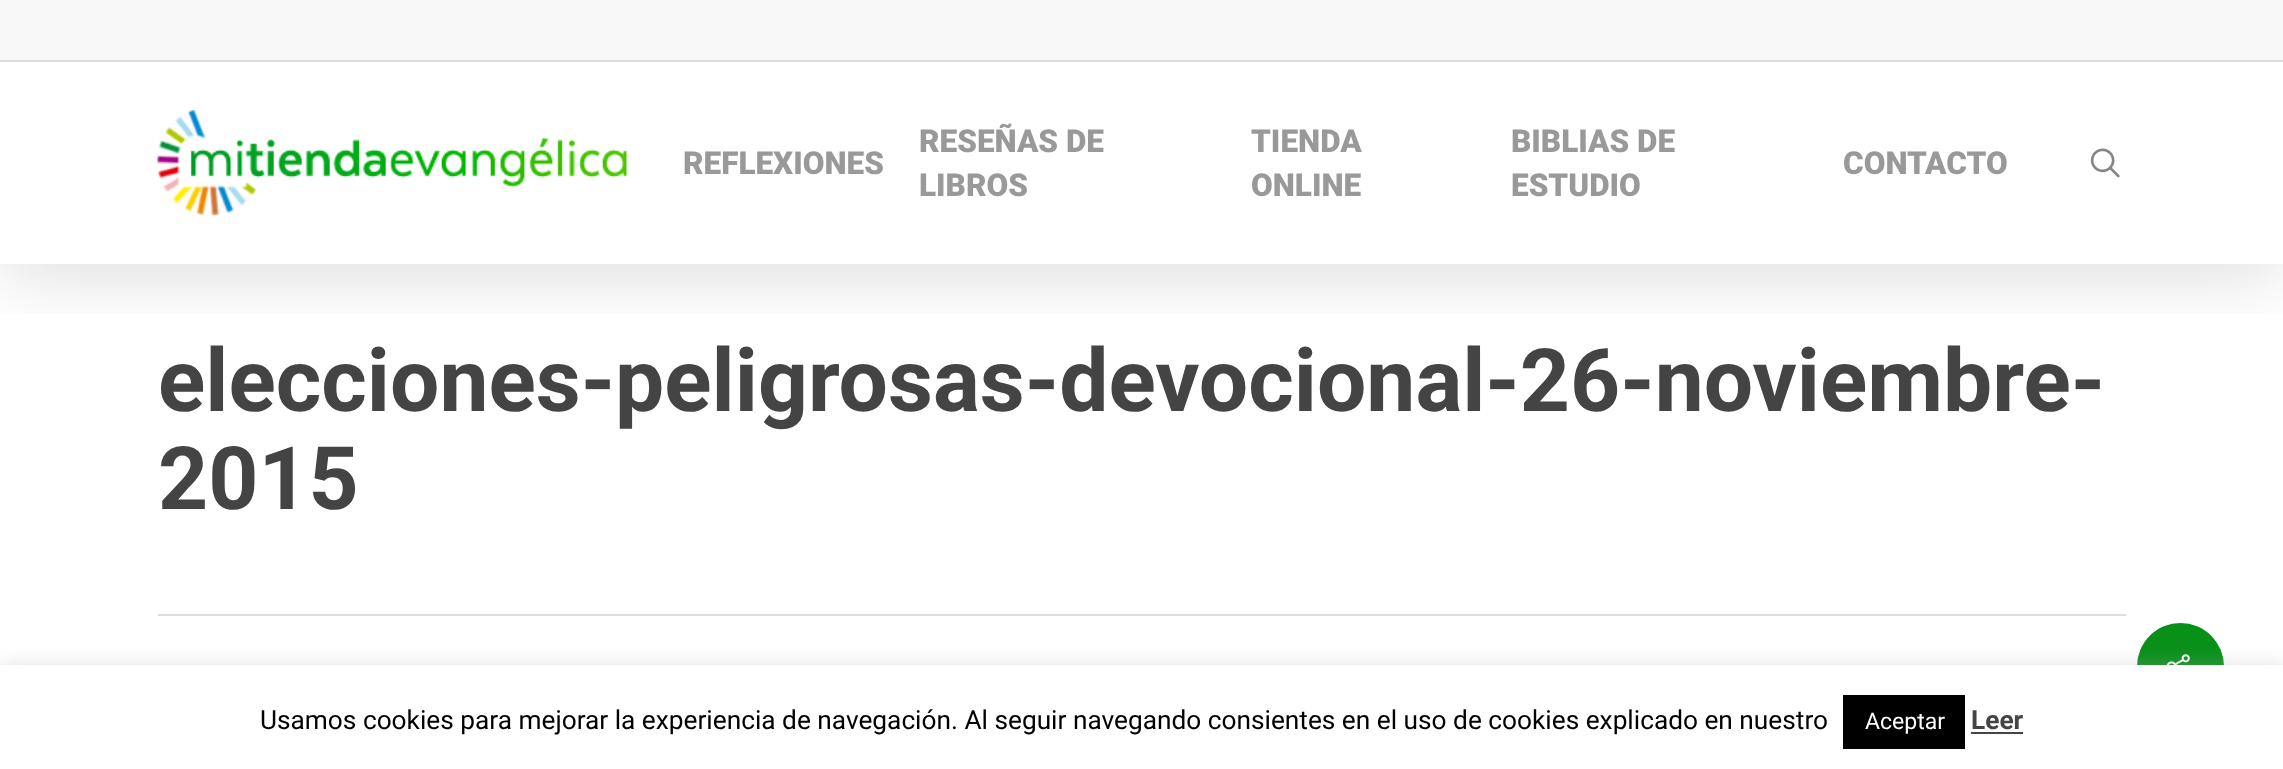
<svg xmlns="http://www.w3.org/2000/svg" width="2283" height="769">
	<defs>
		<clipPath id="clip1"><rect x="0" y="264" width="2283" height="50" /></clipPath>
	</defs>
	<rect width="100%" height="100%" fill="#FFFFFF" />
	<g clip-path="url(#clip1)">
		<rect x="0" y="5" width="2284" height="265" fill="#000000" fill-opacity="0.15" filter="blur(39.5px)" />
	</g>
	<rect x="0" y="0" width="2283" height="60" fill="#F8F8F8" />
	<rect x="0" y="60" width="2283" height="2" fill="#DDDDDD" />
	<image x="157" y="110" width="470" height="106" href="assets/img1.png" />
	<g font-family="Roboto" font-size="31.5" font-weight="900" fill="#999999">
		<text x="683" y="174">REFLEXIONES</text>
		<text x="919" y="152">RESEÑAS DE</text>
		<text x="919" y="196">LIBROS</text>
		<text x="1251" y="152">TIENDA</text>
		<text x="1251" y="196">ONLINE</text>
		<text x="1511" y="152">BIBLIAS DE</text>
		<text x="1511" y="196">ESTUDIO</text>
		<text x="1843" y="174">CONTACTO</text>
	</g>
	<image x="2090" y="148" width="30" height="30" href="assets/img2.png" />
	<rect x="158" y="614" width="1968" height="2" fill="#DDDDDD" />
	<g font-family="Roboto" font-size="87.5" font-weight="700" fill="#444444">
		<text x="158" y="411">elecciones-peligrosas-devocional-26-noviembre-</text>
		<text x="158" y="509">2015</text>
	</g>
	<rect x="2137" y="623" width="87" height="88" rx="43.5" fill="#089019" />
	<image x="2166" y="654" width="24" height="11" href="assets/img3.png" />
	<rect x="0" y="663" width="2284" height="105" fill="#ACABAB" fill-opacity="0.3" filter="blur(9px)" />
	<rect x="0" y="665" width="2283" height="104" fill="#FFFFFF" />
	<text x="260" y="729" font-family="Roboto" font-size="26.25" fill="#000000">Usamos cookies para mejorar la experiencia de navegación. Al seguir navegando consientes en el uso de cookies explicado en nuestro</text>
	<rect x="1843" y="695" width="122" height="54" fill="#000000" />
	<text x="1865" y="729" font-family="Roboto" font-size="23" fill="#FFFFFF">Aceptar</text>
	<text x="1971" y="729" font-family="Roboto" font-size="26.25" font-weight="700" fill="#444444">Leer</text>
	<rect x="1971" y="732" width="52" height="2" fill="#444444" />
</svg>
